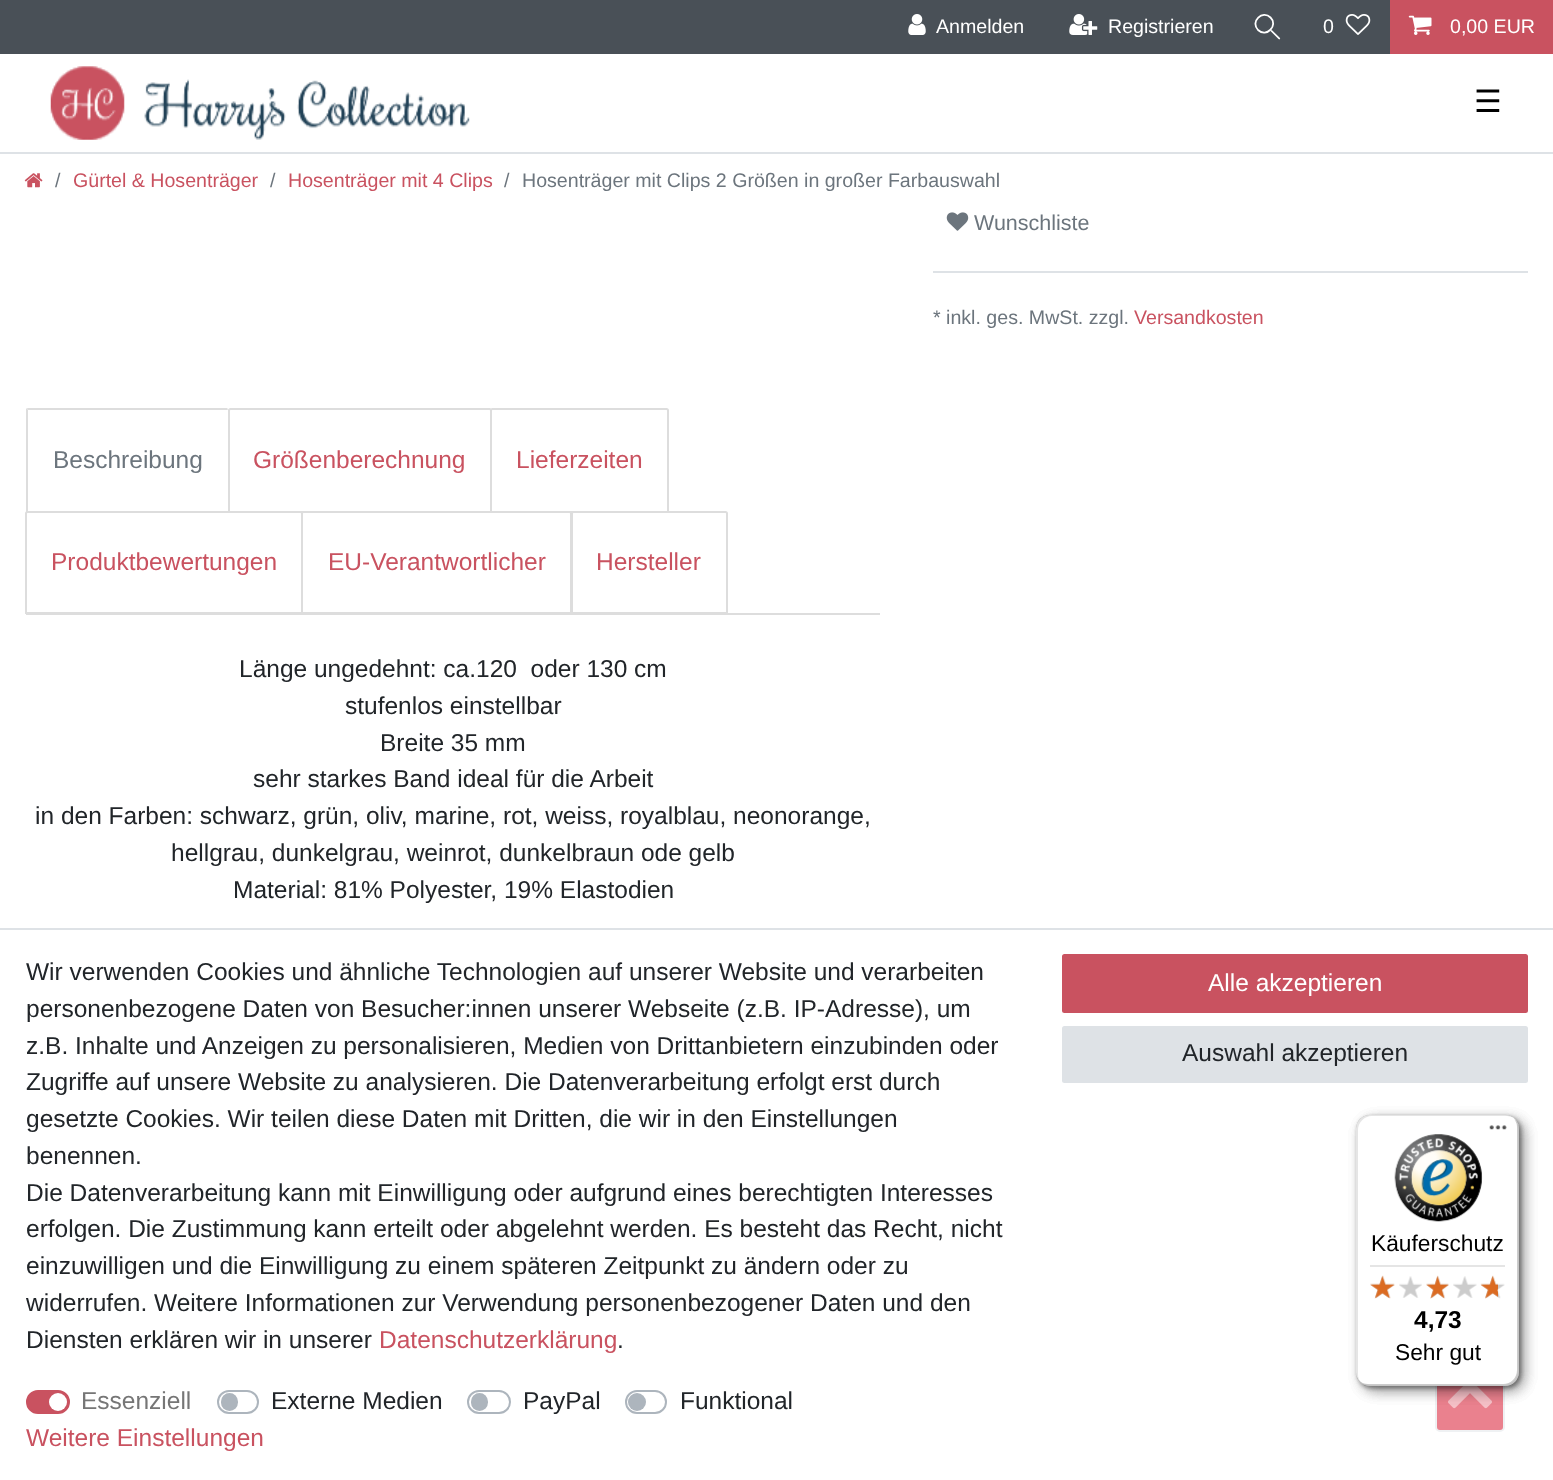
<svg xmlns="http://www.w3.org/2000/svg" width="1553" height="1480">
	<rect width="100%" height="100%" fill="#FFFFFF" />
	<rect x="0" y="0" width="1390" height="54" fill="#495057" />
	<image x="908" y="14" width="18" height="21" href="assets/img1.png" />
	<text x="936" y="33" font-family="Liberation Sans" font-size="19.6" fill="#FFFFFF">Anmelden</text>
	<image x="1069" y="14" width="29" height="21" href="assets/img2.png" />
	<text x="1108" y="33" font-family="Liberation Sans" font-size="19.6" fill="#FFFFFF">Registrieren</text>
	<path d="M1278.5 39L1261 21.5V21C1261.5 20.5 1262 20 1262 20.5L1280 38C1280.5 39 1279.5 40 1278.5 39Z" fill="#FFFFFF" />
	<path d="M1257.5 30.5C1248.5 21.5 1262 8 1271 17C1280 26 1266.5 39.5 1257.5 30.5Z" fill="#495057" />
	<path d="M1258 30C1250 21.5 1262.5 9.5 1270.5 17.5C1278.5 25.5 1266.5 38 1258 30Z" fill="none" stroke="#FFFFFF" stroke-width="1.8" />
	<text x="1323" y="33" font-family="Liberation Sans" font-size="19.6" fill="#FFFFFF">0</text>
	<image x="1345" y="14" width="26" height="21" href="assets/img3.png" />
	<rect x="1390" y="0" width="163" height="54" fill="#C95260" />
	<image x="1408" y="15" width="24" height="20" href="assets/img4.png" />
	<text x="1450" y="33" font-family="Liberation Sans" font-size="19.6" fill="#FFFFFF">0,00 EUR</text>
	<rect x="0" y="152" width="1553" height="2" fill="#DEE2E6" />
	<image x="50" y="66" width="420" height="74" href="assets/img5.png" />
	<text x="1474" y="112" font-family="DejaVu Sans" font-size="31" fill="#000000">☰</text>
	<image x="24" y="173" width="19" height="15" href="assets/img6.png" />
	<text x="55" y="187" font-family="Liberation Sans" font-size="19.6" fill="#6C757D">/</text>
	<text x="73" y="187" font-family="Liberation Sans" font-size="19.6" fill="#C95260">Gürtel &amp; Hosenträger</text>
	<text x="270" y="187" font-family="Liberation Sans" font-size="19.6" fill="#6C757D">/</text>
	<text x="288" y="187" font-family="Liberation Sans" font-size="19.6" fill="#C95260">Hosenträger mit 4 Clips</text>
	<g font-family="Liberation Sans" font-size="19.6" fill="#6C757D">
		<text x="504" y="187">/</text>
		<text x="522" y="187">Hosenträger mit Clips 2 Größen in großer Farbauswahl</text>
	</g>
	<image x="946" y="212" width="23" height="19" href="assets/img7.png" />
	<text x="974" y="230" font-family="Liberation Sans" font-size="21.5" fill="#6C757D">Wunschliste</text>
	<rect x="933" y="271" width="595" height="2" fill="#DEE2E6" />
	<text x="933" y="324" font-family="Liberation Sans" font-size="19.6" fill="#6C757D">* inkl. ges. MwSt. zzgl.</text>
	<text x="1134" y="324" font-family="Liberation Sans" font-size="19.6" fill="#C95260">Versandkosten</text>
	<rect x="26" y="613" width="854" height="2" fill="#DDDDDD" />
	<path d="M29 408H27L28 410H227L228 409L227 408Z" fill="#DDDDDD" />
	<path d="M229 512V410L228 409L227 410H228V511Z" fill="#DDDDDD" />
	<path d="M26 513L28 511V410L27 408L26 409Z" fill="#DDDDDD" />
	<text x="53" y="468" font-family="Liberation Sans" font-size="24.5" fill="#6C757D">Beschreibung</text>
	<path d="M230.5 409H489.5C490.5 409 491 409.5 491 410.5V512H229V410.5C229 409.5 229.5 409 230.5 409Z" fill="none" stroke="#DDDDDD" stroke-width="2" />
	<text x="253" y="468" font-family="Liberation Sans" font-size="24.5" fill="#C95260">Größenberechnung</text>
	<path d="M492.5 409H666.5C667.5 409 668 409.5 668 410.5V512H491V410.5C491 409.5 491.5 409 492.5 409Z" fill="none" stroke="#DDDDDD" stroke-width="2" />
	<text x="516" y="468" font-family="Liberation Sans" font-size="24.5" fill="#C95260">Lieferzeiten</text>
	<path d="M27.5 512H300.5C301.5 512 302 512.5 302 513.5V613H26V513.5C26 512.5 26.5 512 27.5 512Z" fill="none" stroke="#DDDDDD" stroke-width="2" />
	<text x="51" y="570" font-family="Liberation Sans" font-size="24.5" fill="#C95260">Produktbewertungen</text>
	<path d="M303.5 512H569.5C570.5 512 571 512.5 571 513.5V613H302V513.5C302 512.5 302.5 512 303.5 512Z" fill="none" stroke="#DDDDDD" stroke-width="2" />
	<text x="328" y="570" font-family="Liberation Sans" font-size="24.5" fill="#C95260">EU-Verantwortlicher</text>
	<path d="M573.5 512H725.5C726.5 512 727 512.5 727 513.5V613H572V513.5C572 512.5 572.5 512 573.5 512Z" fill="none" stroke="#DDDDDD" stroke-width="2" />
	<text x="596" y="570" font-family="Liberation Sans" font-size="24.5" fill="#C95260">Hersteller</text>
	<g font-family="Liberation Sans" font-size="24.5" fill="#212529">
		<text x="239" y="677" xml:space="preserve">Länge ungedehnt: ca.120  oder 130 cm</text>
		<text x="345" y="714">stufenlos einstellbar</text>
		<text x="380" y="751">Breite 35 mm</text>
		<text x="253" y="787">sehr starkes Band ideal für die Arbeit</text>
		<text x="35" y="824">in den Farben: schwarz, grün, oliv, marine, rot, weiss, royalblau, neonorange,</text>
		<text x="171" y="861">hellgrau, dunkelgrau, weinrot, dunkelbraun ode gelb</text>
		<text x="233" y="898">Material: 81% Polyester, 19% Elastodien</text>
	</g>
	<rect x="0" y="928" width="1553" height="2" fill="#DEE2E6" />
	<g font-family="Liberation Sans" font-size="24.5" fill="#212529">
		<text x="26" y="980">Wir verwenden Cookies und ähnliche Technologien auf unserer Website und verarbeiten</text>
		<text x="26" y="1017">personenbezogene Daten von Besucher:innen unserer Webseite (z.B. IP-Adresse), um</text>
		<text x="26" y="1054">z.B. Inhalte und Anzeigen zu personalisieren, Medien von Drittanbietern einzubinden oder</text>
		<text x="26" y="1090">Zugriffe auf unsere Website zu analysieren. Die Datenverarbeitung erfolgt erst durch</text>
		<text x="26" y="1127">gesetzte Cookies. Wir teilen diese Daten mit Dritten, die wir in den Einstellungen</text>
		<text x="26" y="1164">benennen.</text>
		<text x="26" y="1201">Die Datenverarbeitung kann mit Einwilligung oder aufgrund eines berechtigten Interesses</text>
		<text x="26" y="1237">erfolgen. Die Zustimmung kann erteilt oder abgelehnt werden. Es besteht das Recht, nicht</text>
		<text x="26" y="1274">einzuwilligen und die Einwilligung zu einem späteren Zeitpunkt zu ändern oder zu</text>
		<text x="26" y="1311">widerrufen. Weitere Informationen zur Verwendung personenbezogener Daten und den</text>
		<text x="26" y="1348">Diensten erklären wir in unserer</text>
	</g>
	<text x="379" y="1348" font-family="Liberation Sans" font-size="24.5" fill="#C95260">Datenschutzerklärung</text>
	<text x="617" y="1348" font-family="Liberation Sans" font-size="24.5" fill="#212529">.</text>
	<rect x="27" y="1391" width="42" height="22" rx="11" fill="#C95260" stroke="#C95260" stroke-width="2" />
	<text x="81" y="1409" font-family="Liberation Sans" font-size="24.5" fill="#767676">Essenziell</text>
	<circle cx="58" cy="1402" r="9" fill="#FFFFFF" />
	<rect x="218" y="1391" width="40" height="22" rx="11" fill="none" stroke="#ADB5BD" stroke-width="2" />
	<text x="271" y="1409" font-family="Liberation Sans" font-size="24.5" fill="#212529">Externe Medien</text>
	<rect x="221" y="1393" width="17" height="18" rx="8.5" fill="#ADB5BD" />
	<rect x="468" y="1391" width="42" height="22" rx="11" fill="none" stroke="#ADB5BD" stroke-width="2" />
	<text x="523" y="1409" font-family="Liberation Sans" font-size="24.5" fill="#212529">PayPal</text>
	<rect x="471" y="1393" width="17" height="18" rx="8.5" fill="#ADB5BD" />
	<rect x="626" y="1391" width="40" height="22" rx="11" fill="none" stroke="#ADB5BD" stroke-width="2" />
	<text x="680" y="1409" font-family="Liberation Sans" font-size="24.5" fill="#212529">Funktional</text>
	<circle cx="637" cy="1402" r="9" fill="#ADB5BD" />
	<text x="26" y="1446" font-family="Liberation Sans" font-size="24.5" fill="#C95260">Weitere Einstellungen</text>
	<rect x="1063" y="955" width="464" height="57" rx="1.5" fill="#C95260" stroke="#C95260" stroke-width="2" />
	<text x="1208" y="991" font-family="Liberation Sans" font-size="24.5" fill="#FFFFFF">Alle akzeptieren</text>
	<rect x="1063" y="1027" width="464" height="55" rx="1.5" fill="#DEE2E6" stroke="#DEE2E6" stroke-width="2" />
	<text x="1182" y="1061" font-family="Liberation Sans" font-size="24.5" fill="#212529">Auswahl akzeptieren</text>
	<rect x="1436" y="1359" width="68" height="72" rx="4" fill="#EA818E" stroke="#EFF1F3" stroke-width="2" />
	<image x="1448" y="1386" width="44" height="23" href="assets/img8.png" />
	<rect x="1362" y="1120" width="162" height="271" rx="14" fill="#000000" fill-opacity="0.15" filter="blur(7px)" />
	<rect x="1358" y="1117" width="163" height="271" rx="14" fill="#000000" fill-opacity="0.15" filter="blur(2px)" />
	<path d="M1372 1116H1507C1509 1116 1512 1117 1514 1118C1511 1116 1508 1115 1505 1115H1370C1362 1115 1356 1121 1356 1129V1372C1356 1377 1358 1381 1362 1383C1359 1381 1358 1377 1358 1374V1130C1358 1123 1364 1116 1372 1116Z" fill="#000000" fill-opacity="0.1" />
	<path d="M1359 1380C1361 1384 1365 1386 1370 1386H1505C1513 1386 1519 1380 1519 1372V1129C1519 1125 1517 1121 1514 1119C1516 1121 1517 1124 1517 1127V1370C1517 1378 1511 1384 1503 1384H1368C1365 1384 1361 1383 1359 1380Z" fill="#000000" fill-opacity="0.2" />
	<path d="M1361 1382C1363 1385 1366 1386 1370 1386H1505C1513 1386 1519 1380 1519 1372V1129C1519 1125 1518 1122 1515 1120C1517 1122 1518 1125 1518 1128V1371C1518 1379 1512 1385 1504 1385H1369C1366 1385 1363 1384 1361 1382Z" fill="#323232" fill-opacity="0.2" />
	<path d="M1359 1381C1361 1384 1365 1386 1370 1386H1505C1513 1386 1519 1380 1519 1372V1129C1519 1125 1518 1122 1515 1120C1517 1122 1518 1125 1518 1128V1371C1518 1379 1512 1385 1504 1385H1369C1365 1385 1362 1383 1359 1381Z" fill="#FFFFFF" fill-opacity="0.3" />
	<rect x="1362" y="1120" width="162" height="271" rx="14" fill="#000000" fill-opacity="0.15" filter="blur(7px)" />
	<rect x="1358" y="1117" width="163" height="271" rx="14" fill="#000000" fill-opacity="0.15" filter="blur(2px)" />
	<path d="M1372 1116H1507C1509 1116 1512 1117 1514 1118C1511 1116 1508 1115 1505 1115H1370C1362 1115 1356 1121 1356 1129V1372C1356 1377 1358 1381 1362 1383C1359 1381 1358 1377 1358 1374V1130C1358 1123 1364 1116 1372 1116Z" fill="#000000" fill-opacity="0.1" />
	<path d="M1359 1380C1361 1384 1365 1386 1370 1386H1505C1513 1386 1519 1380 1519 1372V1129C1519 1125 1517 1121 1514 1119C1516 1121 1517 1124 1517 1127V1370C1517 1378 1511 1384 1503 1384H1368C1365 1384 1361 1383 1359 1380Z" fill="#000000" fill-opacity="0.2" />
	<path d="M1361 1382C1363 1385 1366 1386 1370 1386H1505C1513 1386 1519 1380 1519 1372V1129C1519 1125 1518 1122 1515 1120C1517 1122 1518 1125 1518 1128V1371C1518 1379 1512 1385 1504 1385H1369C1366 1385 1363 1384 1361 1382Z" fill="#323232" fill-opacity="0.2" />
	<path d="M1359 1381C1361 1384 1365 1386 1370 1386H1505C1513 1386 1519 1380 1519 1372V1129C1519 1125 1518 1122 1515 1120C1517 1122 1518 1125 1518 1128V1371C1518 1379 1512 1385 1504 1385H1369C1365 1385 1362 1383 1359 1381Z" fill="#FFFFFF" fill-opacity="0.3" />
	<rect x="1362" y="1120" width="162" height="271" rx="14" fill="#000000" fill-opacity="0.15" filter="blur(7px)" />
	<rect x="1358" y="1117" width="163" height="271" rx="14" fill="#000000" fill-opacity="0.15" filter="blur(2px)" />
	<rect x="1356" y="1115" width="163" height="271" rx="14" fill="#FFFFFF" />
	<path d="M1372 1116H1507C1509 1116 1512 1117 1514 1118C1511 1116 1508 1115 1505 1115H1370C1362 1115 1356 1121 1356 1129V1372C1356 1377 1358 1381 1362 1383C1359 1381 1358 1377 1358 1374V1130C1358 1123 1364 1116 1372 1116Z" fill="#000000" fill-opacity="0.1" />
	<path d="M1359 1380C1361 1384 1365 1386 1370 1386H1505C1513 1386 1519 1380 1519 1372V1129C1519 1125 1517 1121 1514 1119C1516 1121 1517 1124 1517 1127V1370C1517 1378 1511 1384 1503 1384H1368C1365 1384 1361 1383 1359 1380Z" fill="#000000" fill-opacity="0.2" />
	<path d="M1361 1382C1363 1385 1366 1386 1370 1386H1505C1513 1386 1519 1380 1519 1372V1129C1519 1125 1518 1122 1515 1120C1517 1122 1518 1125 1518 1128V1371C1518 1379 1512 1385 1504 1385H1369C1366 1385 1363 1384 1361 1382Z" fill="#323232" fill-opacity="0.2" />
	<path d="M1359 1381C1361 1384 1365 1386 1370 1386H1505C1513 1386 1519 1380 1519 1372V1129C1519 1125 1518 1122 1515 1120C1517 1122 1518 1125 1518 1128V1371C1518 1379 1512 1385 1504 1385H1369C1365 1385 1362 1383 1359 1381Z" fill="#FFFFFF" fill-opacity="0.3" />
	<image x="1489" y="1125" width="18" height="5" href="assets/img9.png" />
	<image x="1394" y="1134" width="89" height="88" href="assets/img10.png" />
	<text x="1371" y="1251" font-family="Liberation Sans" font-size="22.75" fill="#000000">Käuferschutz</text>
	<rect x="1370" y="1265" width="135" height="2" fill="#E5E5E5" />
	<image x="1370" y="1276" width="25" height="22" href="assets/img14.png" />
	<image x="1370" y="1275" width="25" height="24" href="assets/img11.png" />
	<image x="1426" y="1276" width="23" height="23" href="assets/img16.png" />
	<image x="1426" y="1275" width="23" height="24" href="assets/img12.png" />
	<image x="1481" y="1276" width="24" height="23" href="assets/img18.png" />
	<image x="1480" y="1275" width="18" height="24" href="assets/img13.png" />
	<image x="1399" y="1276" width="23" height="22" href="assets/img15.png" />
	<image x="1453" y="1276" width="24" height="22" href="assets/img17.png" />
	<text x="1414" y="1328" font-family="Liberation Sans" font-size="24.5" font-weight="700" fill="#000000">4,73</text>
	<text x="1395" y="1360" font-family="Liberation Sans" font-size="22.75" fill="#000000">Sehr gut</text>
</svg>
